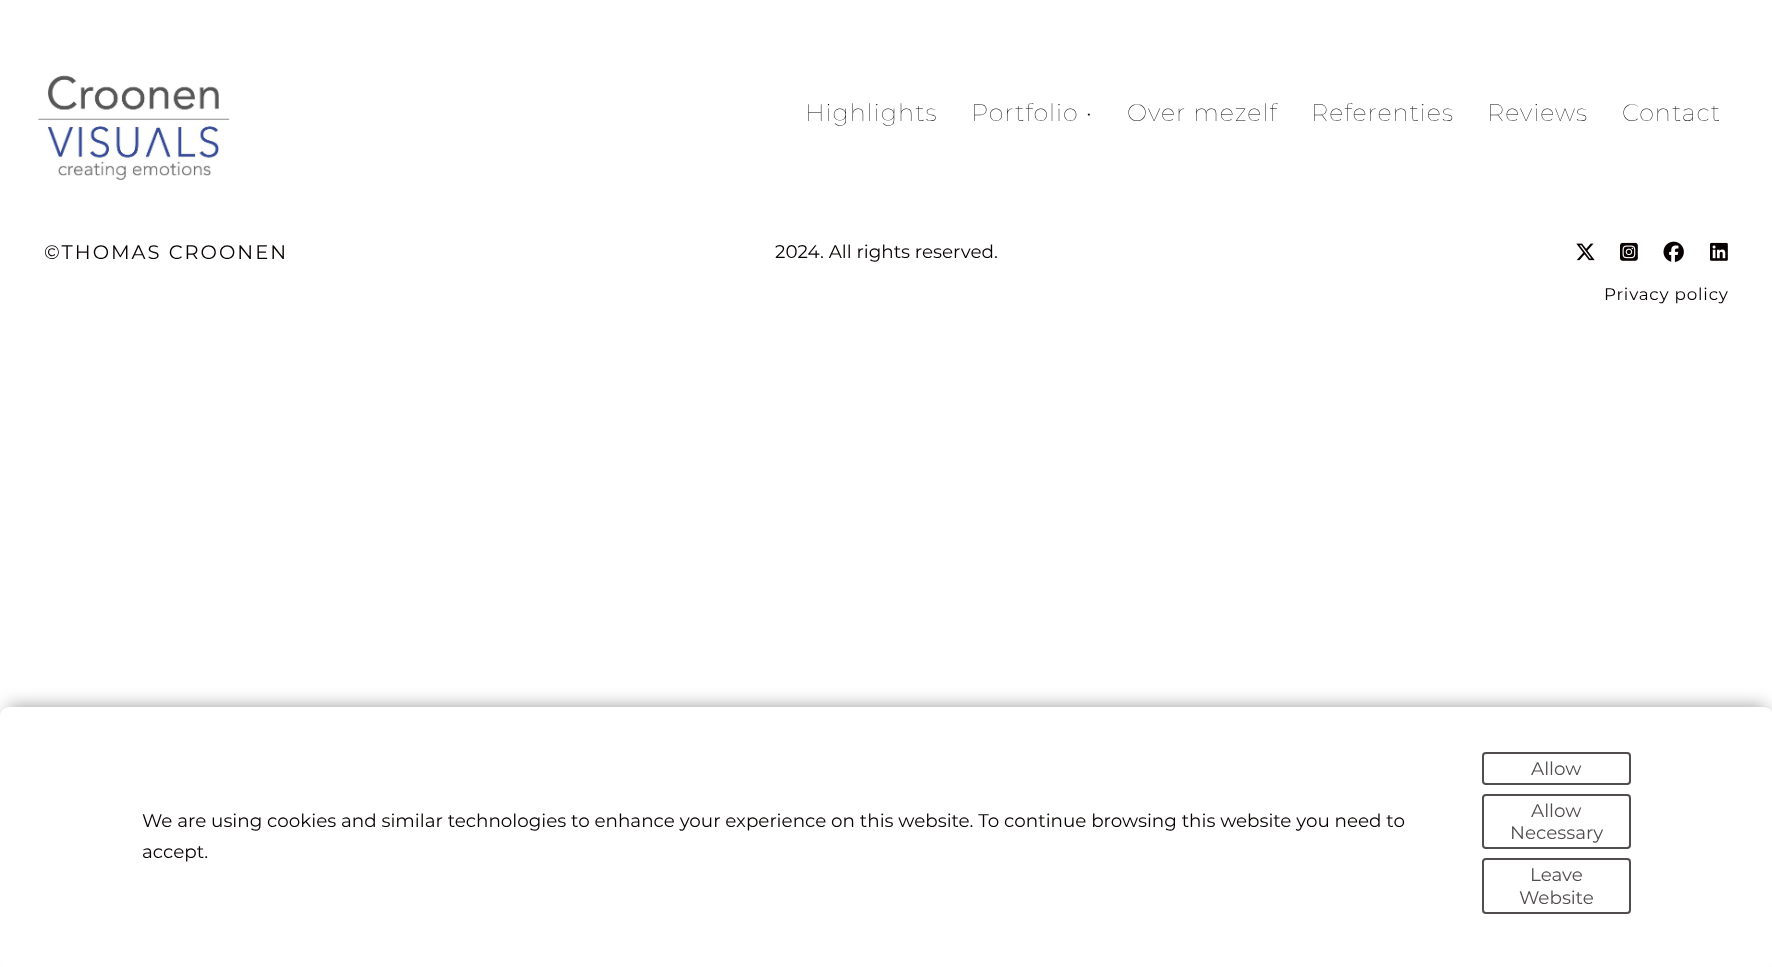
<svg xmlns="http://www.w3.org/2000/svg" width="1772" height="967">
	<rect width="100%" height="100%" fill="#FFFFFF" />
	<image x="38" y="75" width="192" height="106" href="assets/img1.png" />
	<g font-family="Montserrat" font-size="24" font-weight="100" letter-spacing="1" fill="#070000">
		<text x="805" y="121">Highlights</text>
		<text x="971" y="121">Portfolio •</text>
		<text x="1127" y="121">Over mezelf</text>
		<text x="1311" y="121">Referenties</text>
		<text x="1487" y="121">Reviews</text>
		<text x="1622" y="121">Contact</text>
	</g>
	<text x="44" y="259" font-family="Montserrat" font-size="19.5" letter-spacing="2" fill="#070000">©THOMAS CROONEN</text>
	<text x="775" y="258" font-family="Montserrat" font-size="18.35" fill="#070000">2024. All rights reserved.</text>
	<image x="1576" y="243" width="19" height="18" href="assets/img2.png" />
	<image x="1620" y="242" width="18" height="19" href="assets/img3.png" />
	<image x="1663" y="241" width="21" height="21" href="assets/img4.png" />
	<image x="1710" y="242" width="18" height="19" href="assets/img5.png" />
	<text x="1604" y="300" font-family="Montserrat" font-size="16.75" letter-spacing="0.8" fill="#070000">Privacy policy</text>
	<rect x="8" y="707" width="1758" height="246" rx="1.5" fill="#000000" fill-opacity="0.4" filter="blur(9px)" />
	<rect x="0" y="707" width="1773" height="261" rx="9" fill="#FFFFFF" />
	<g font-family="Montserrat" font-size="18.35" fill="#070000">
		<text x="142" y="827">We are using cookies and similar technologies to enhance your experience on this website. To continue browsing this website you need to</text>
		<text x="142" y="858">accept.</text>
	</g>
	<rect x="1483" y="753" width="147" height="31" rx="3" fill="none" stroke="#514D4D" stroke-width="2" />
	<text x="1531" y="775" font-family="Montserrat" font-size="18.35" fill="#514D4D">Allow</text>
	<rect x="1483" y="795" width="147" height="53" rx="3" fill="none" stroke="#514D4D" stroke-width="2" />
	<g font-family="Montserrat" font-size="18.35" fill="#514D4D">
		<text x="1531" y="817">Allow</text>
		<text x="1510" y="839">Necessary</text>
	</g>
	<rect x="1483" y="859" width="147" height="54" rx="3" fill="none" stroke="#514D4D" stroke-width="2" />
	<g font-family="Montserrat" font-size="18.35" fill="#514D4D">
		<text x="1530" y="881">Leave</text>
		<text x="1519" y="904">Website</text>
	</g>
</svg>
